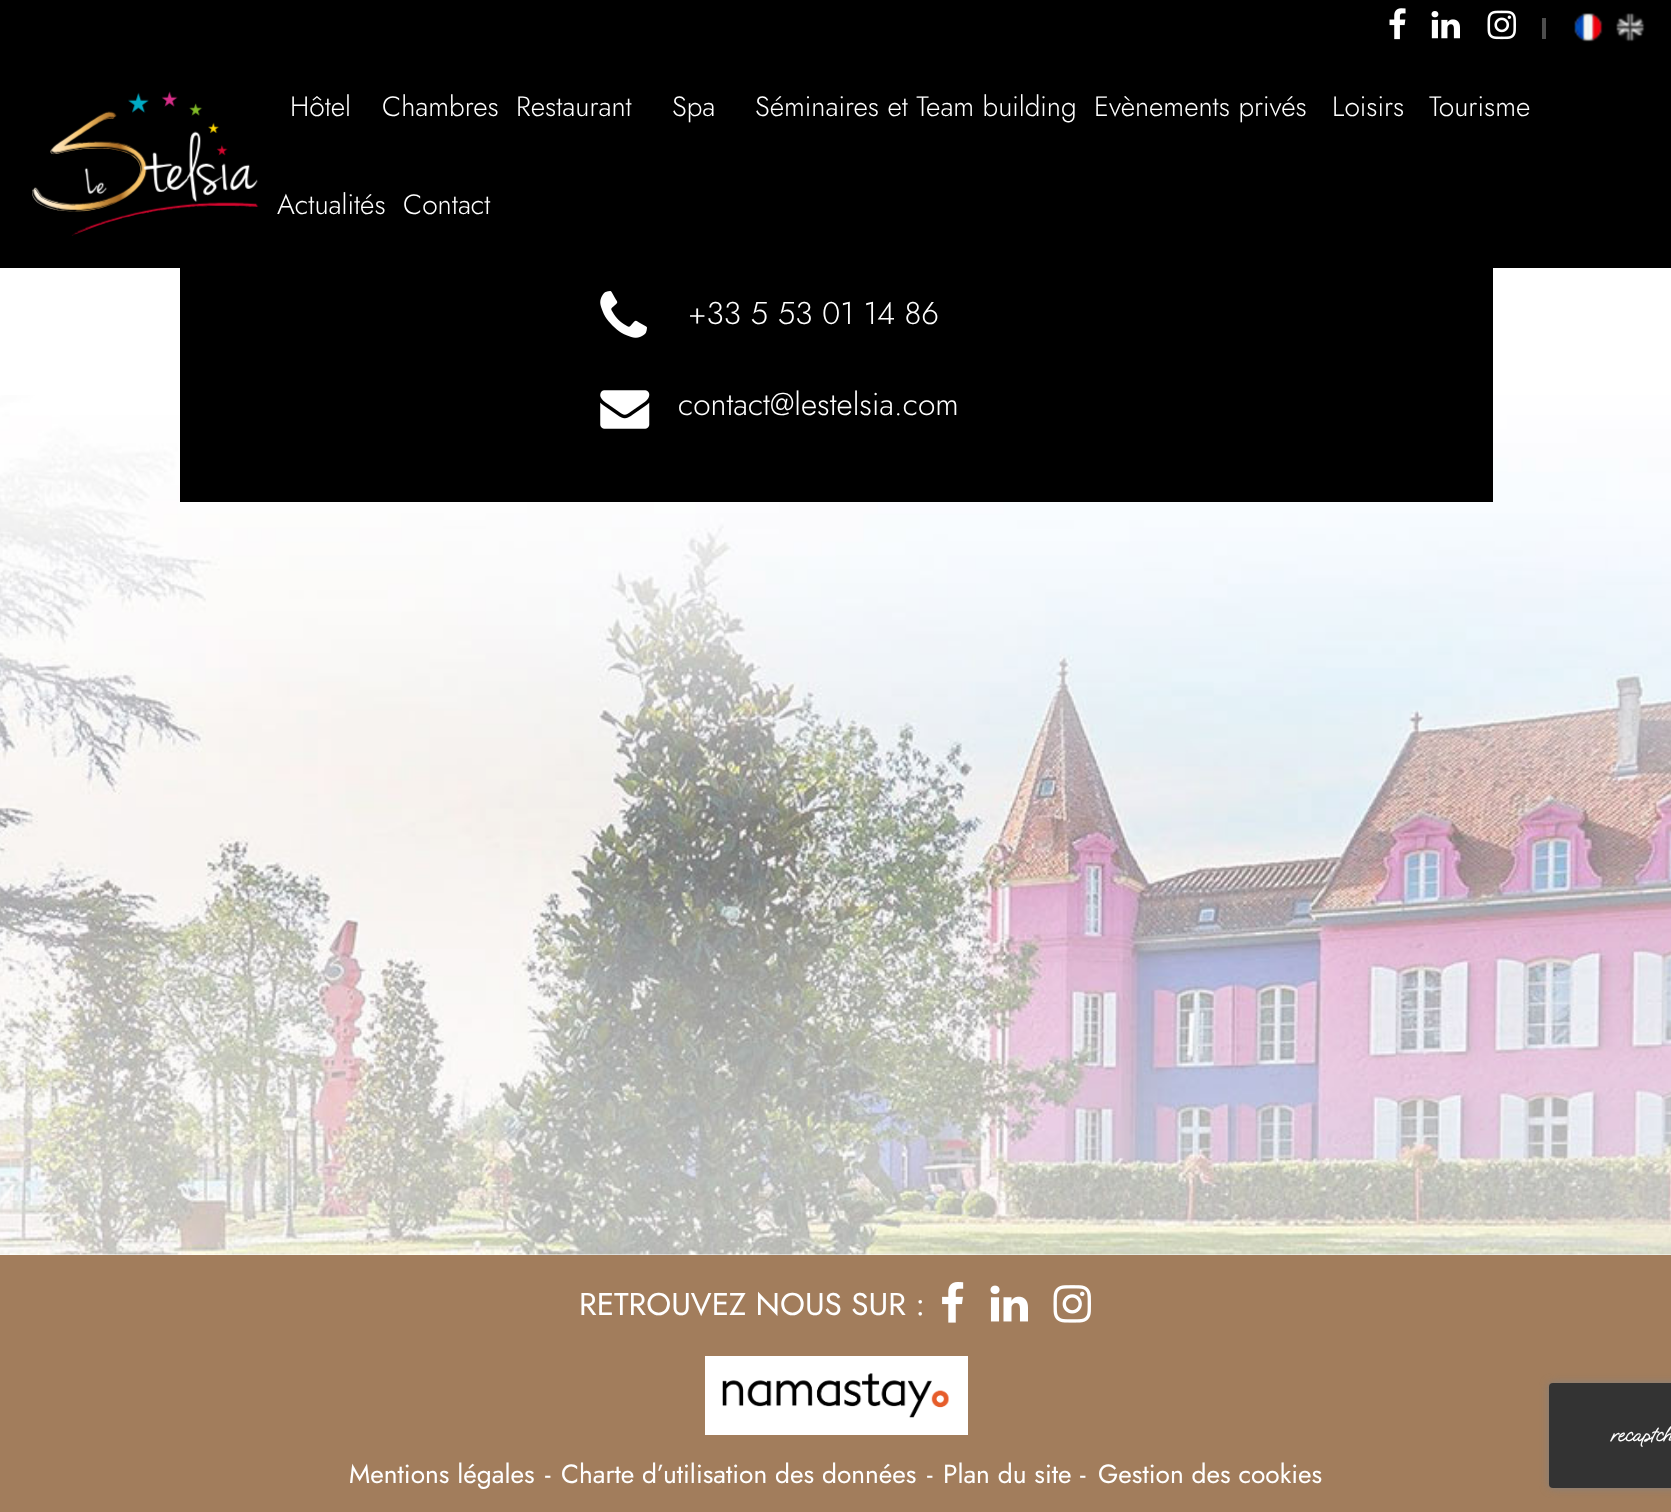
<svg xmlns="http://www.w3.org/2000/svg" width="1671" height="1512">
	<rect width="100%" height="100%" fill="#FFFFFF" />
	<rect x="0" y="0" width="1671" height="268" fill="#000000" />
	<image x="32" y="91" width="227" height="145" href="assets/img1.png" />
	<image x="1389" y="8" width="17" height="32" href="assets/img2.png" />
	<image x="1431" y="11" width="29" height="28" href="assets/img3.png" />
	<image x="1487" y="10" width="29" height="30" href="assets/img4.png" />
	<rect x="1542" y="18" width="4" height="21" fill="#4D4D4D" />
	<image x="1574" y="13" width="29" height="29" href="assets/img5.png" />
	<image x="1616" y="13" width="29" height="29" href="assets/img6.png" />
	<g font-family="Jost" font-size="28" font-weight="300" fill="#FFFFFF">
		<text x="290" y="116">Hôtel</text>
		<text x="382" y="116">Chambres</text>
		<text x="516" y="116">Restaurant</text>
		<text x="672" y="116">Spa</text>
		<text x="755" y="116">Séminaires et Team building</text>
		<text x="1094" y="116">Evènements privés</text>
		<text x="1332" y="116">Loisirs</text>
		<text x="1429" y="116">Tourisme</text>
		<text x="277" y="214">Actualités</text>
		<text x="403" y="214">Contact</text>
	</g>
	<image x="0" y="395" width="1671" height="860" href="assets/img7.png" />
	<rect x="180" y="268" width="1313" height="234" fill="#000000" />
	<image x="600" y="291" width="47" height="47" href="assets/img8.png" />
	<text x="688" y="324" font-family="Jost" font-size="31.5" font-weight="300" fill="#FFFFFF">+33 5 53 01 14 86</text>
	<image x="600" y="390" width="50" height="39" href="assets/img9.png" />
	<text x="678" y="415" font-family="Jost" font-size="31.5" font-weight="300" fill="#FFFFFF">contact@lestelsia.com</text>
	<rect x="0" y="1255" width="1671" height="257" fill="#A27D5C" />
	<text x="579" y="1315" font-family="Jost" font-size="31.5" fill="#FFFFFF">RETROUVEZ NOUS SUR :</text>
	<image x="942" y="1282" width="22" height="41" href="assets/img10.png" />
	<image x="990" y="1285" width="38" height="37" href="assets/img11.png" />
	<image x="1053" y="1285" width="38" height="38" href="assets/img12.png" />
	<rect x="705" y="1356" width="263" height="79" fill="#FFFFFF" />
	<image x="722" y="1373" width="227" height="45" href="assets/img13.png" />
	<g font-family="Jost" font-size="26.25" fill="#FFFFFF">
		<text x="349" y="1483">Mentions légales</text>
		<text x="545" y="1483">-</text>
		<text x="561" y="1483">Charte d’utilisation des données</text>
		<text x="927" y="1483">-</text>
		<text x="943" y="1483">Plan du site</text>
		<text x="1080" y="1483">-</text>
		<text x="1098" y="1483">Gestion des cookies</text>
	</g>
	<rect x="1549" y="1383" width="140" height="105" rx="4" fill="#808080" filter="blur(4.5px)" />
	<rect x="1549" y="1383" width="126" height="105" rx="4" fill="#333333" />
	<text x="1610" y="1441" font-family="Oooh Baby" font-size="21" font-weight="700" fill="#FFFFFF">recaptch</text>
</svg>
